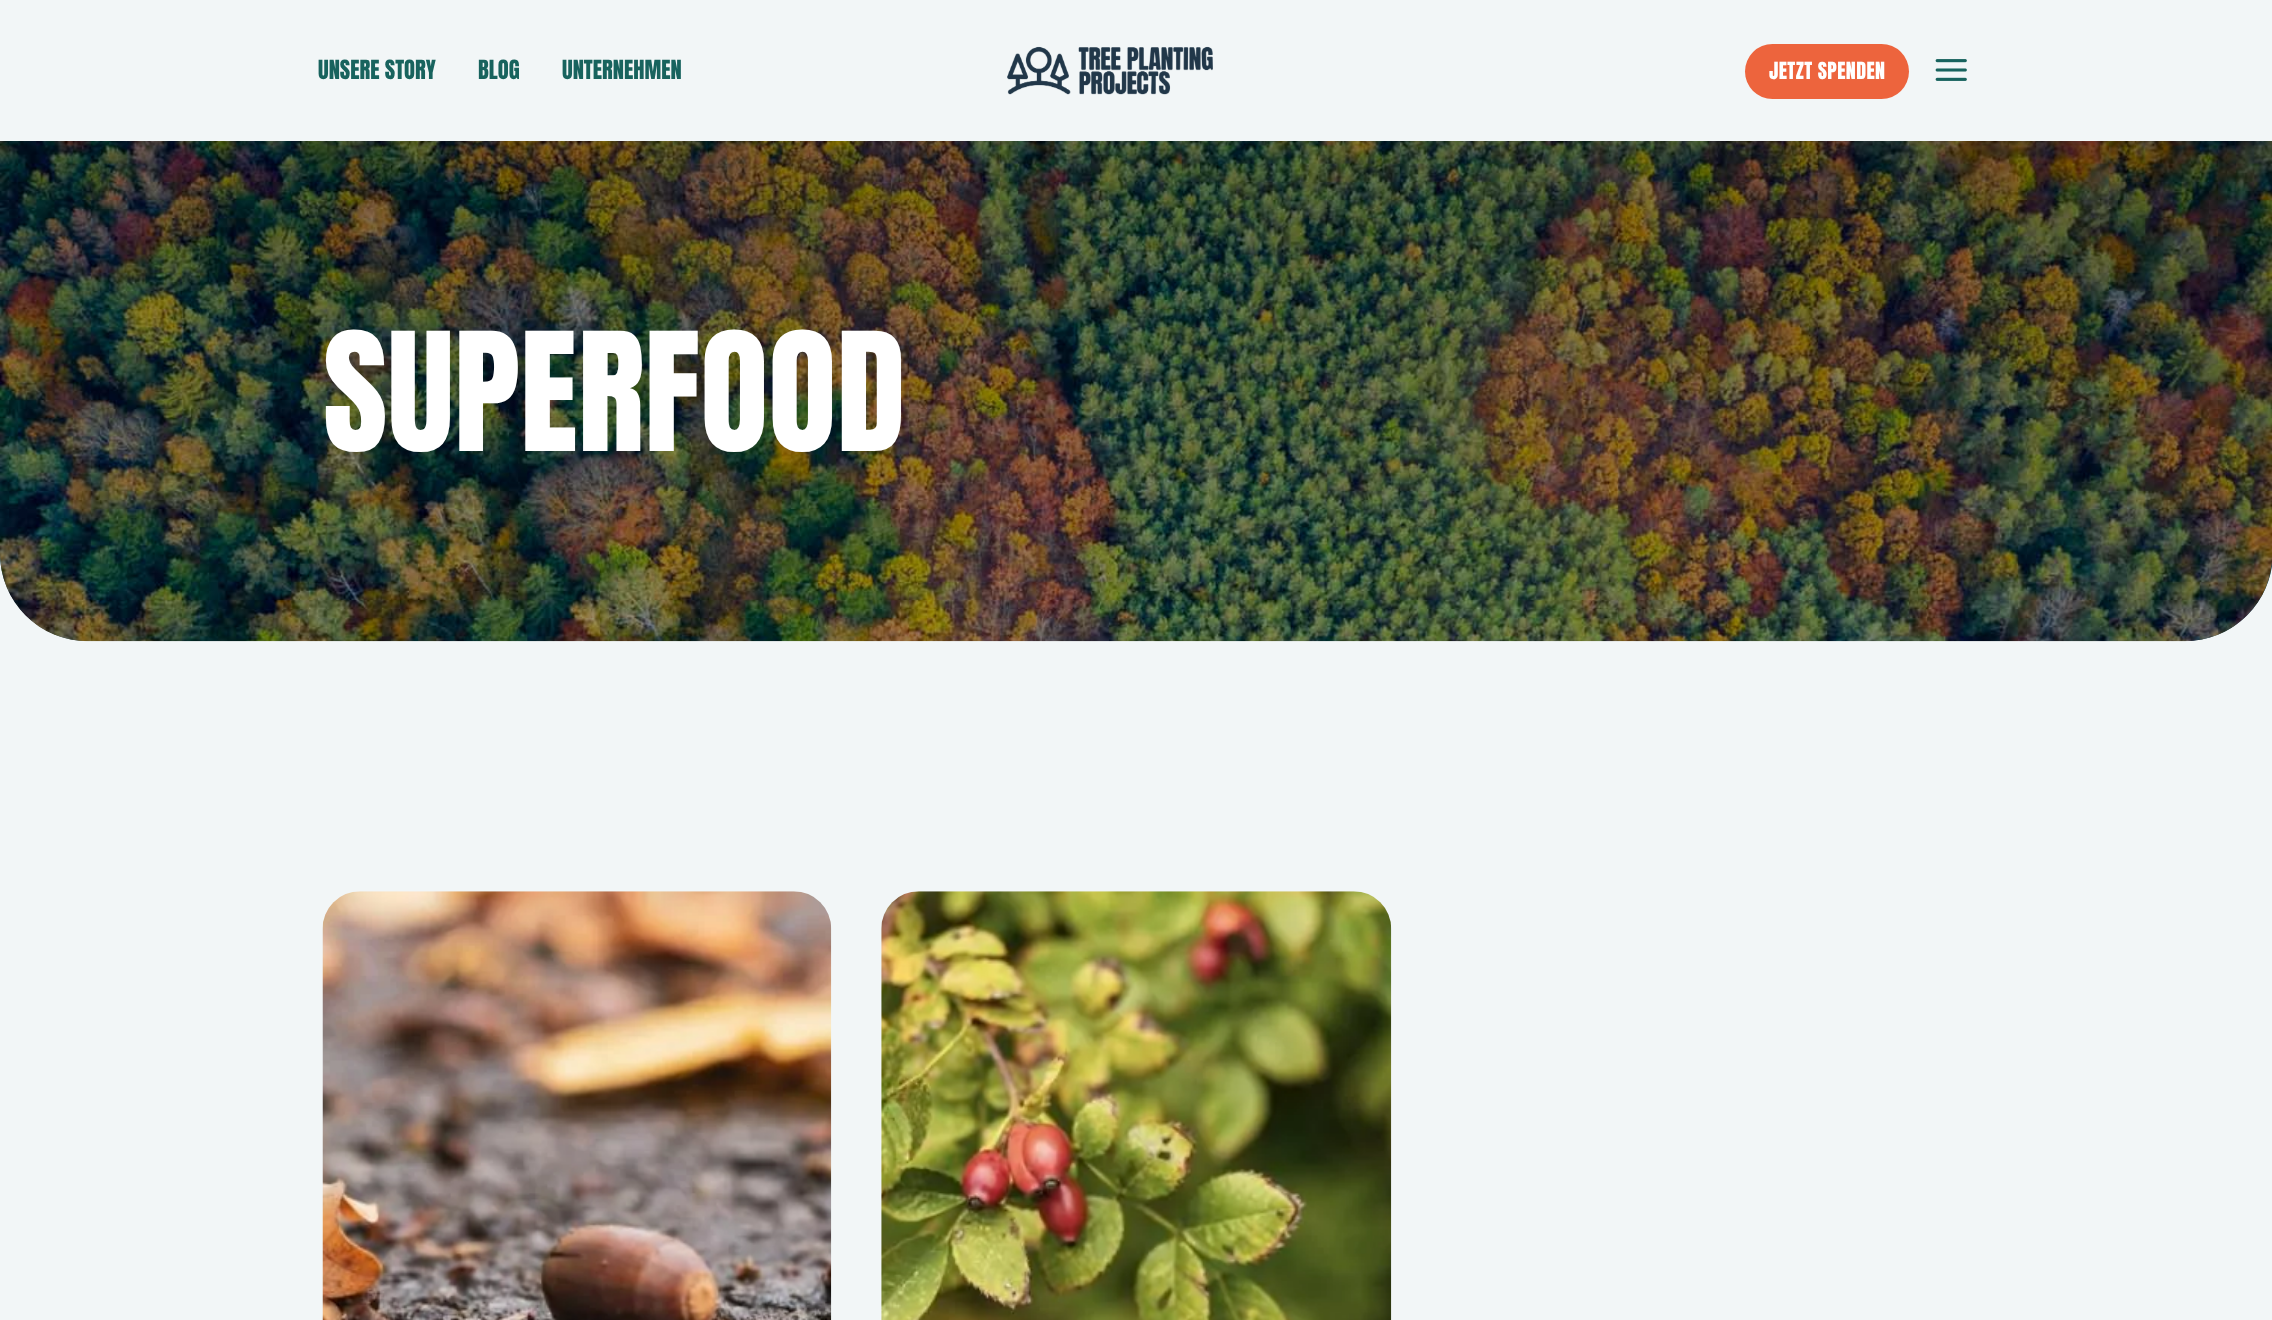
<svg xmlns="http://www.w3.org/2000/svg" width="2272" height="1320">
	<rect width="100%" height="100%" fill="#F2F6F7" />
	<path d="M0 0H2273V553C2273 601.5 2233.5 641 2185 641H88C39.5 641 0 601.5 0 553Z" fill="#14475A" />
	<rect x="0" y="0" width="2272" height="141" fill="#F2F6F7" />
	<g font-family="Anton" font-size="22.5" fill="#18635E">
		<text x="318" y="79">UNSERE STORY</text>
		<text x="478" y="79">BLOG</text>
		<text x="562" y="79">UNTERNEHMEN</text>
	</g>
	<image x="1007" y="46" width="206" height="49" href="assets/img1.png" />
	<rect x="1745" y="44" width="164" height="55" rx="27.5" fill="#ED643D" />
	<text x="1769" y="79" font-family="Anton" font-size="20" letter-spacing="0.4" fill="#FFFFFF">JETZT SPENDEN</text>
	<image x="1935" y="59" width="32" height="22" href="assets/img2.png" />
	<image x="0" y="141" width="2272" height="501" href="assets/img3.png" />
	<text x="323" y="451" font-family="Anton" font-size="140" fill="#FFFFFF">SUPERFOOD</text>
	<image x="322" y="891" width="510" height="429" href="assets/img4.png" />
	<image x="881" y="891" width="511" height="429" href="assets/img5.png" />
</svg>
